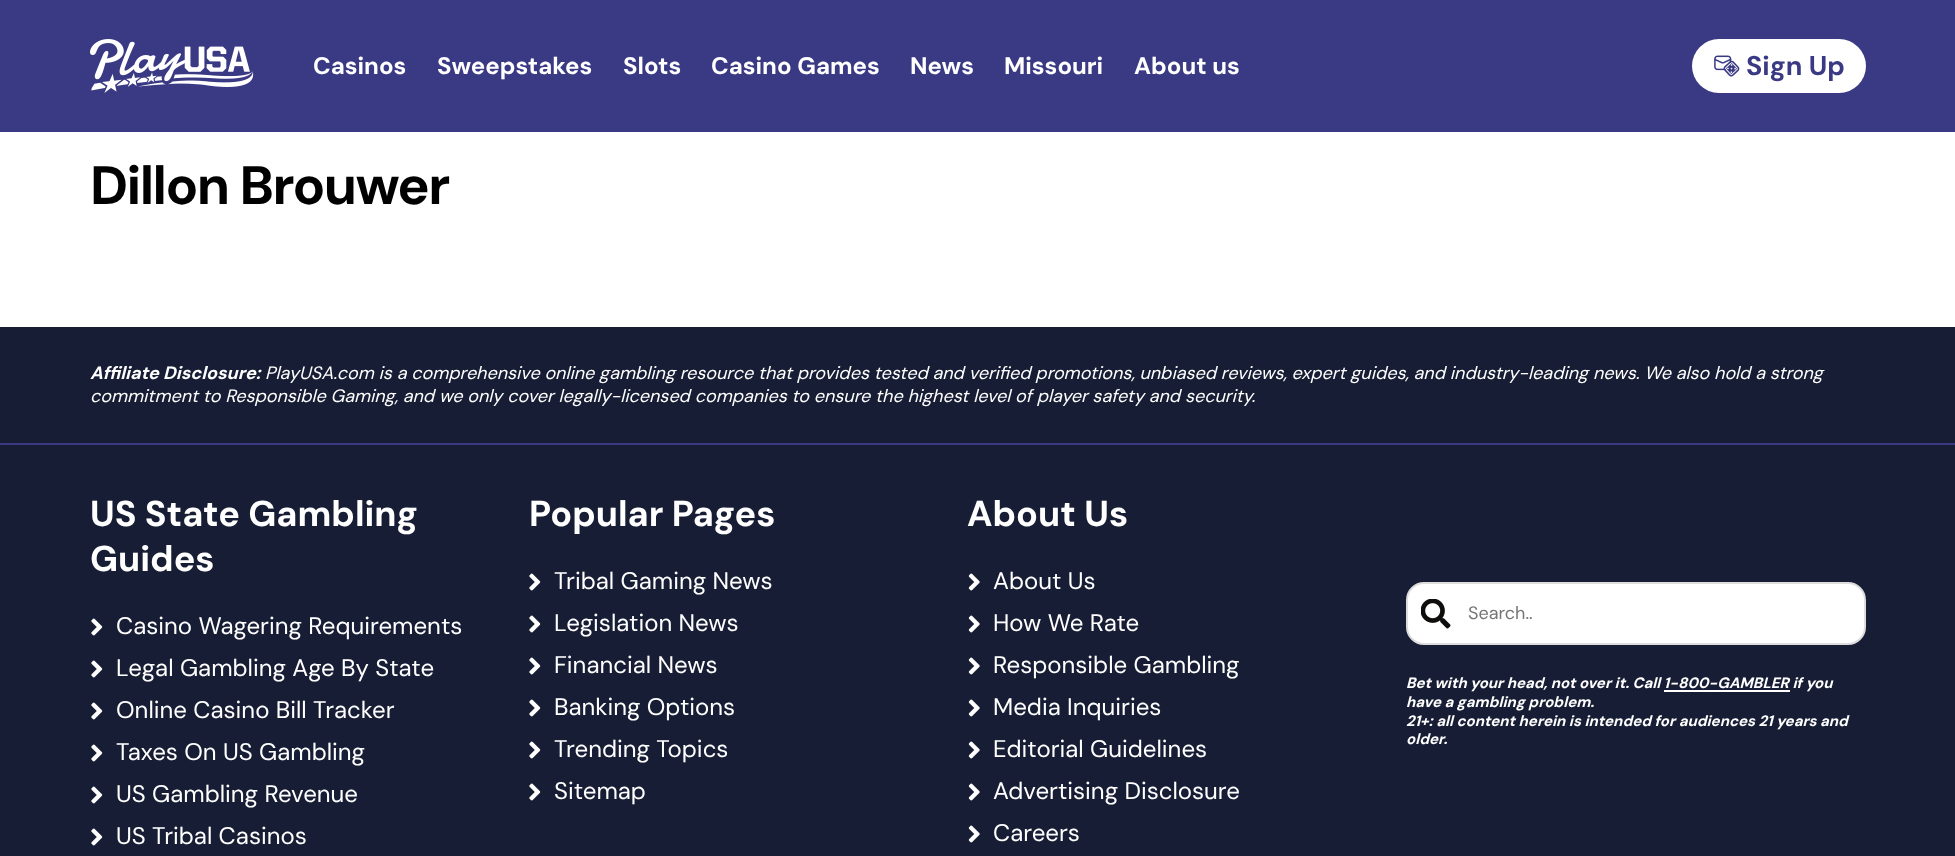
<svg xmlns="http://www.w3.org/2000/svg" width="1955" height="856">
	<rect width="100%" height="100%" fill="#FFFFFF" />
	<rect x="0" y="0" width="1955" height="132" fill="#3A3984" />
	<g font-family="DM Sans" font-size="24" font-weight="700" fill="#FFFFFF">
		<text x="313" y="74">Casinos</text>
		<text x="437" y="74">Sweepstakes</text>
		<text x="623" y="74">Slots</text>
		<text x="711" y="74">Casino Games</text>
		<text x="910" y="74">News</text>
		<text x="1004" y="74">Missouri</text>
		<text x="1134" y="74">About us</text>
	</g>
	<image x="90" y="39" width="164" height="54" href="assets/img1.png" />
	<rect x="1692" y="39" width="174" height="54" rx="27" fill="#FFFFFF" />
	<image x="1714" y="55" width="26" height="22" href="assets/img2.png" />
	<text x="1746" y="75" font-family="DM Sans" font-size="27" font-weight="700" fill="#3A3984">Sign Up</text>
	<text x="90" y="204" font-family="DM Sans" font-size="54" font-weight="700" letter-spacing="-1.6" fill="#000000">Dillon Brouwer</text>
	<rect x="0" y="327" width="1955" height="529" fill="#171D34" />
	<text x="90" y="379" font-family="DM Sans" font-size="18" font-weight="700" font-style="italic" fill="#FFFFFF">Affiliate Disclosure:</text>
	<g font-family="DM Sans" font-size="18" font-style="italic" fill="#FFFFFF">
		<text x="265" y="379">PlayUSA.com is a comprehensive online gambling resource that provides tested and verified promotions, unbiased reviews, expert guides, and industry-leading news. We also hold a strong</text>
		<text x="90" y="402">commitment to Responsible Gaming, and we only cover legally-licensed companies to ensure the highest level of player safety and security.</text>
	</g>
	<rect x="0" y="443" width="1955" height="2" fill="#3A3984" />
	<g font-family="DM Sans" font-size="36" font-weight="700" fill="#FFFFFF">
		<text x="90" y="526">US State Gambling</text>
		<text x="90" y="571">Guides</text>
	</g>
	<image x="91" y="618" width="12" height="18" href="assets/img3.png" />
	<text x="116" y="634" font-family="DM Sans" font-size="24" fill="#FFFFFF">Casino Wagering Requirements</text>
	<image x="91" y="660" width="12" height="18" href="assets/img3.png" />
	<text x="116" y="676" font-family="DM Sans" font-size="24" fill="#FFFFFF">Legal Gambling Age By State</text>
	<image x="91" y="702" width="12" height="18" href="assets/img3.png" />
	<text x="116" y="718" font-family="DM Sans" font-size="24" fill="#FFFFFF">Online Casino Bill Tracker</text>
	<image x="91" y="744" width="12" height="18" href="assets/img3.png" />
	<text x="116" y="760" font-family="DM Sans" font-size="24" fill="#FFFFFF">Taxes On US Gambling</text>
	<image x="91" y="786" width="12" height="18" href="assets/img3.png" />
	<text x="116" y="802" font-family="DM Sans" font-size="24" fill="#FFFFFF">US Gambling Revenue</text>
	<image x="91" y="828" width="12" height="18" href="assets/img3.png" />
	<text x="116" y="844" font-family="DM Sans" font-size="24" fill="#FFFFFF">US Tribal Casinos</text>
	<text x="529" y="526" font-family="DM Sans" font-size="36" font-weight="700" fill="#FFFFFF">Popular Pages</text>
	<image x="529" y="573" width="12" height="18" href="assets/img3.png" />
	<text x="554" y="589" font-family="DM Sans" font-size="24" fill="#FFFFFF">Tribal Gaming News</text>
	<image x="529" y="615" width="12" height="18" href="assets/img3.png" />
	<text x="554" y="631" font-family="DM Sans" font-size="24" fill="#FFFFFF">Legislation News</text>
	<image x="529" y="657" width="12" height="18" href="assets/img3.png" />
	<text x="554" y="673" font-family="DM Sans" font-size="24" fill="#FFFFFF">Financial News</text>
	<image x="529" y="699" width="12" height="18" href="assets/img3.png" />
	<text x="554" y="715" font-family="DM Sans" font-size="24" fill="#FFFFFF">Banking Options</text>
	<image x="529" y="741" width="12" height="18" href="assets/img3.png" />
	<text x="554" y="757" font-family="DM Sans" font-size="24" fill="#FFFFFF">Trending Topics</text>
	<image x="529" y="783" width="12" height="18" href="assets/img3.png" />
	<text x="554" y="799" font-family="DM Sans" font-size="24" fill="#FFFFFF">Sitemap</text>
	<text x="967" y="526" font-family="DM Sans" font-size="36" font-weight="700" fill="#FFFFFF">About Us</text>
	<image x="968" y="573" width="12" height="18" href="assets/img4.png" />
	<text x="993" y="589" font-family="DM Sans" font-size="24" fill="#FFFFFF">About Us</text>
	<image x="968" y="615" width="12" height="18" href="assets/img4.png" />
	<text x="993" y="631" font-family="DM Sans" font-size="24" fill="#FFFFFF">How We Rate</text>
	<image x="968" y="657" width="12" height="18" href="assets/img4.png" />
	<text x="993" y="673" font-family="DM Sans" font-size="24" fill="#FFFFFF">Responsible Gambling</text>
	<image x="968" y="699" width="12" height="18" href="assets/img4.png" />
	<text x="993" y="715" font-family="DM Sans" font-size="24" fill="#FFFFFF">Media Inquiries</text>
	<image x="968" y="741" width="12" height="18" href="assets/img4.png" />
	<text x="993" y="757" font-family="DM Sans" font-size="24" fill="#FFFFFF">Editorial Guidelines</text>
	<image x="968" y="783" width="12" height="18" href="assets/img4.png" />
	<text x="993" y="799" font-family="DM Sans" font-size="24" fill="#FFFFFF">Advertising Disclosure</text>
	<image x="968" y="825" width="12" height="18" href="assets/img4.png" />
	<text x="993" y="841" font-family="DM Sans" font-size="24" fill="#FFFFFF">Careers</text>
	<rect x="1407" y="583" width="458" height="61" rx="17" fill="#FFFFFF" stroke="#DDDDDD" stroke-width="2" />
	<image x="1421" y="599" width="30" height="30" href="assets/img5.png" />
	<text x="1468" y="619" font-family="DM Sans" font-size="18" fill="#757575">Search..</text>
	<text x="1406" y="688" font-family="DM Sans" font-size="15" font-weight="700" font-style="italic" fill="#FFFFFF">Bet with your head, not over it. Call 1-800-GAMBLER if you</text>
	<rect x="1664" y="690" width="126" height="2" fill="#FFFFFF" />
	<g font-family="DM Sans" font-size="15" font-weight="700" font-style="italic" fill="#FFFFFF">
		<text x="1406" y="707">have a gambling problem.</text>
		<text x="1406" y="726">21+: all content herein is intended for audiences 21 years and</text>
		<text x="1406" y="744">older.</text>
	</g>
</svg>
